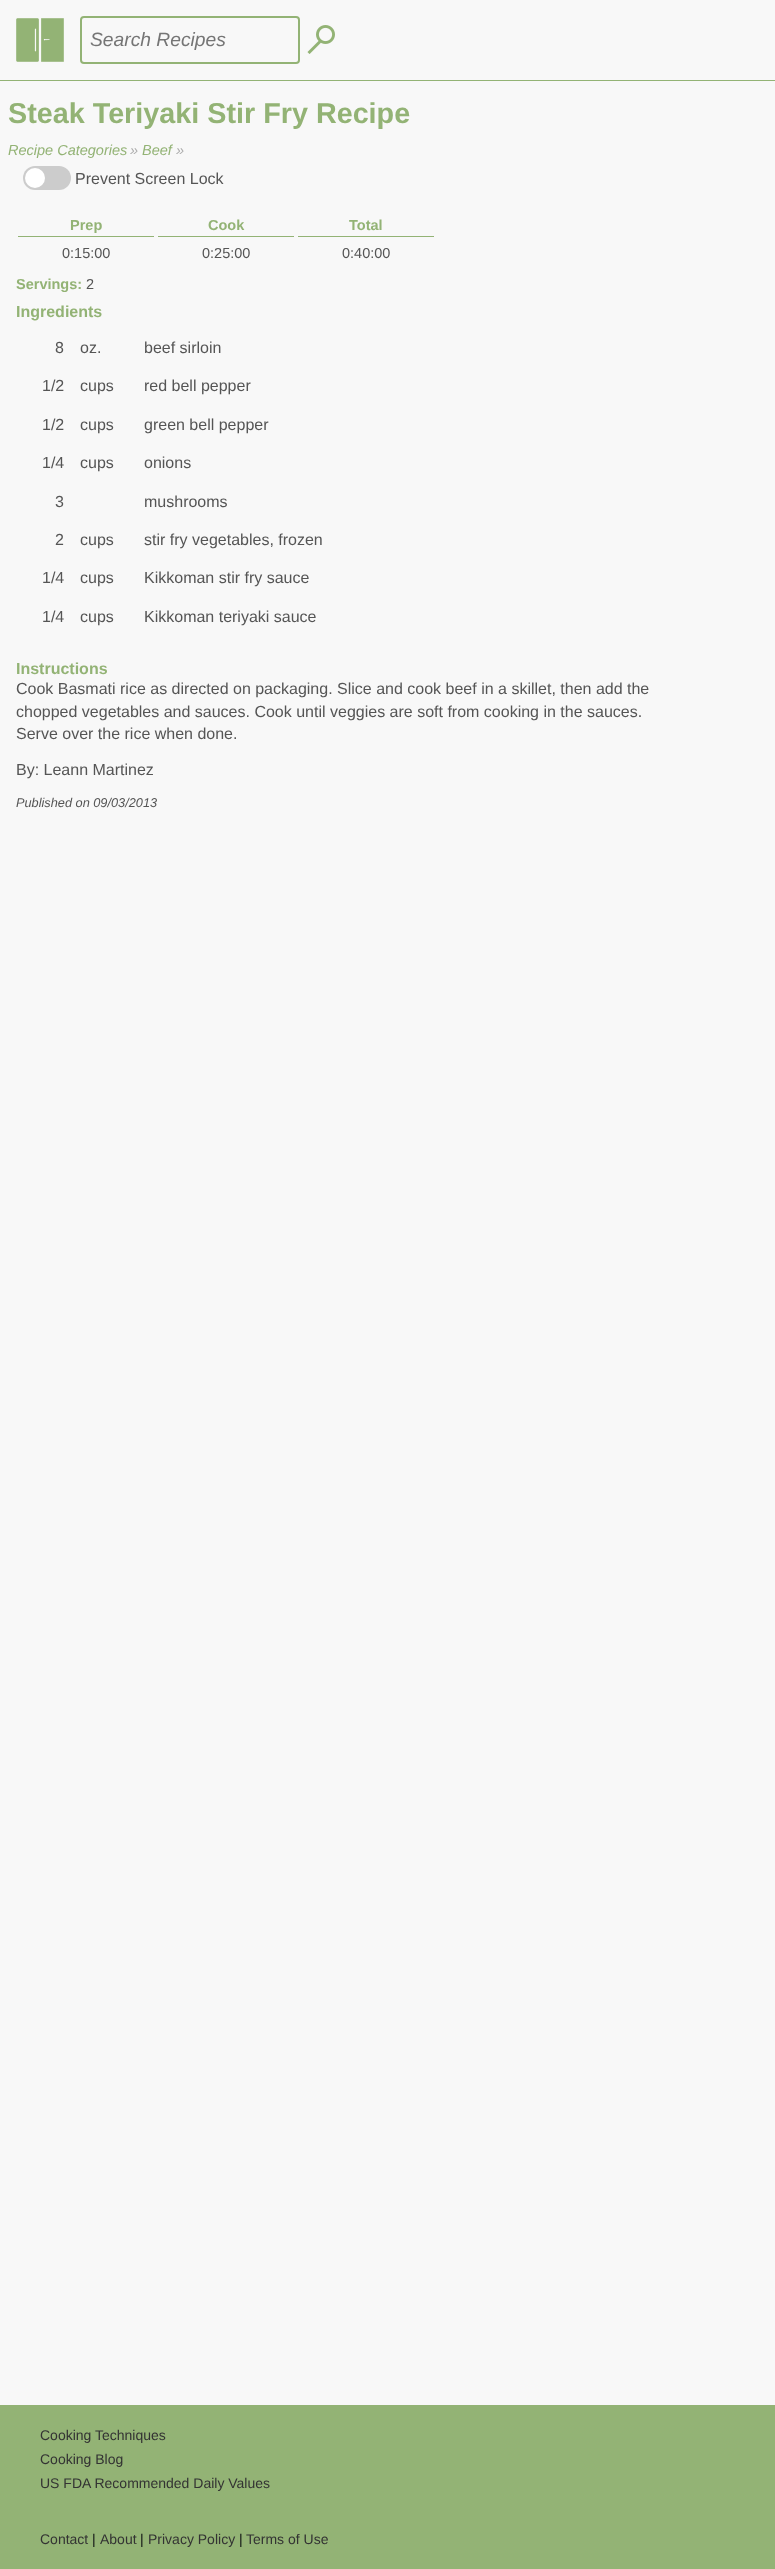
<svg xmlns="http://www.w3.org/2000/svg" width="775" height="2569">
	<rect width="100%" height="100%" fill="#F8F8F8" />
	<rect x="0" y="80" width="775" height="1" fill="#93B375" />
	<image x="16" y="18" width="48" height="44" href="assets/img1.png" />
	<rect x="81" y="17" width="218" height="46" rx="3" fill="none" stroke="#93B375" stroke-width="2" />
	<text x="90" y="46" font-family="Liberation Sans" font-size="19.25" font-style="italic" fill="#757575">Search Recipes</text>
	<image x="307" y="25" width="28" height="29" href="assets/img2.png" />
	<text x="8" y="123" font-family="Liberation Sans" font-size="28.75" font-weight="700" fill="#93B375">Steak Teriyaki Stir Fry Recipe</text>
	<text x="8" y="155" font-family="Liberation Sans" font-size="14.5" font-style="italic" fill="#93B375">Recipe Categories</text>
	<text x="130" y="155" font-family="Liberation Sans" font-size="14.5" font-style="italic" fill="#ADADAD">»</text>
	<text x="142" y="155" font-family="Liberation Sans" font-size="14.5" font-style="italic" fill="#93B375">Beef</text>
	<text x="176" y="155" font-family="Liberation Sans" font-size="14.5" font-style="italic" fill="#ADADAD">»</text>
	<rect x="23" y="166" width="48" height="24" rx="12" fill="#CCCCCC" />
	<circle cx="35" cy="178" r="10" fill="#FFFFFF" />
	<text x="75" y="184" font-family="Liberation Sans" font-size="16" fill="#555555">Prevent Screen Lock</text>
	<rect x="18" y="236" width="136" height="1" fill="#93B375" />
	<text x="70" y="230" font-family="Liberation Sans" font-size="14.5" font-weight="700" fill="#93B375">Prep</text>
	<text x="62" y="258" font-family="Liberation Sans" font-size="14.5" fill="#555555">0:15:00</text>
	<rect x="158" y="236" width="136" height="1" fill="#93B375" />
	<text x="208" y="230" font-family="Liberation Sans" font-size="14.5" font-weight="700" fill="#93B375">Cook</text>
	<text x="202" y="258" font-family="Liberation Sans" font-size="14.5" fill="#555555">0:25:00</text>
	<rect x="298" y="236" width="136" height="1" fill="#93B375" />
	<text x="349" y="230" font-family="Liberation Sans" font-size="14.5" font-weight="700" fill="#93B375">Total</text>
	<text x="342" y="258" font-family="Liberation Sans" font-size="14.5" fill="#555555">0:40:00</text>
	<text x="16" y="289" font-family="Liberation Sans" font-size="14.5" font-weight="700" fill="#93B375">Servings:</text>
	<text x="86" y="289" font-family="Liberation Sans" font-size="14.5" fill="#555555">2</text>
	<text x="16" y="317" font-family="Liberation Sans" font-size="16" font-weight="700" fill="#93B375">Ingredients</text>
	<g font-family="Liberation Sans" font-size="16" fill="#555555">
		<text x="55" y="353">8</text>
		<text x="80" y="353">oz.</text>
		<text x="144" y="353">beef sirloin</text>
		<text x="42" y="391">1/2</text>
		<text x="80" y="391">cups</text>
		<text x="144" y="391">red bell pepper</text>
		<text x="42" y="430">1/2</text>
		<text x="80" y="430">cups</text>
		<text x="144" y="430">green bell pepper</text>
		<text x="42" y="468">1/4</text>
		<text x="80" y="468">cups</text>
		<text x="144" y="468">onions</text>
		<text x="55" y="507">3</text>
		<text x="144" y="507">mushrooms</text>
		<text x="55" y="545">2</text>
		<text x="80" y="545">cups</text>
		<text x="144" y="545">stir fry vegetables, frozen</text>
		<text x="42" y="583">1/4</text>
		<text x="80" y="583">cups</text>
		<text x="144" y="583">Kikkoman stir fry sauce</text>
		<text x="42" y="622">1/4</text>
		<text x="80" y="622">cups</text>
		<text x="144" y="622">Kikkoman teriyaki sauce</text>
	</g>
	<text x="16" y="674" font-family="Liberation Sans" font-size="16" font-weight="700" fill="#93B375">Instructions</text>
	<g font-family="Liberation Sans" font-size="16" fill="#555555">
		<text x="16" y="694">Cook Basmati rice as directed on packaging. Slice and cook beef in a skillet, then add the</text>
		<text x="16" y="717">chopped vegetables and sauces. Cook until veggies are soft from cooking in the sauces.</text>
		<text x="16" y="739">Serve over the rice when done.</text>
		<text x="16" y="775">By: Leann Martinez</text>
	</g>
	<text x="16" y="807" font-family="Liberation Sans" font-size="12.75" font-style="italic" fill="#555555">Published on 09/03/2013</text>
	<rect x="0" y="2405" width="775" height="164" fill="#93B375" />
	<g font-family="Liberation Sans" font-size="14" fill="#333333">
		<text x="40" y="2440">Cooking Techniques</text>
		<text x="40" y="2464">Cooking Blog</text>
		<text x="40" y="2488">US FDA Recommended Daily Values</text>
		<text x="40" y="2544">Contact</text>
	</g>
	<text x="92" y="2544" font-family="Liberation Sans" font-size="14" fill="#0E1113">|</text>
	<text x="100" y="2544" font-family="Liberation Sans" font-size="14" fill="#333333">About</text>
	<text x="140" y="2544" font-family="Liberation Sans" font-size="14" fill="#0E1113">|</text>
	<text x="148" y="2544" font-family="Liberation Sans" font-size="14" fill="#333333">Privacy Policy</text>
	<text x="239" y="2544" font-family="Liberation Sans" font-size="14" fill="#0E1113">|</text>
	<text x="246" y="2544" font-family="Liberation Sans" font-size="14" fill="#333333">Terms of Use</text>
</svg>
